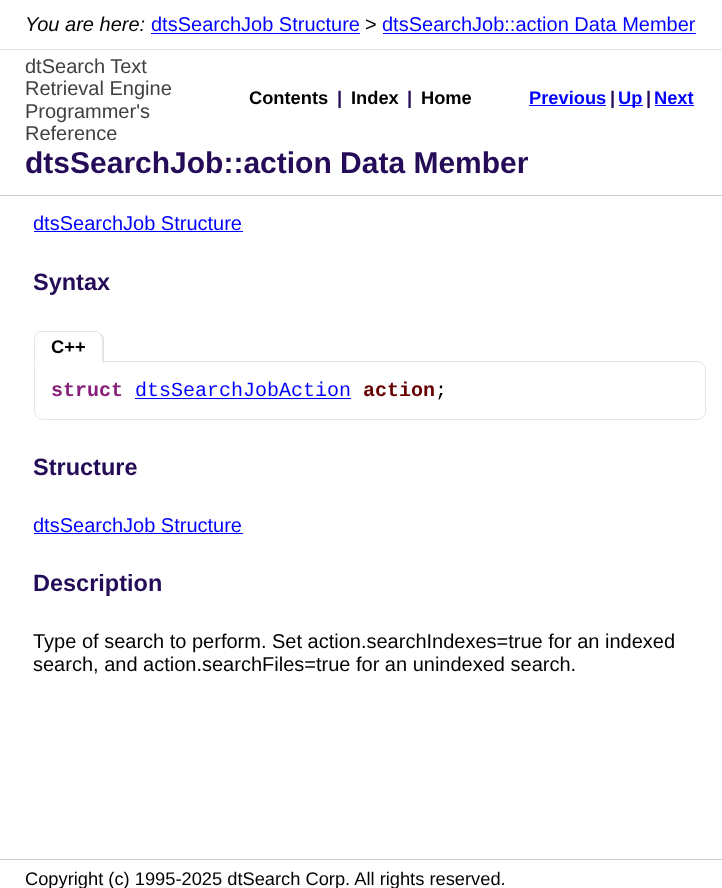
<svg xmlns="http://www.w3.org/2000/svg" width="722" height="888">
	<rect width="100%" height="100%" fill="#FFFFFF" />
	<rect x="0" y="49" width="722" height="1" fill="#E5E5E5" />
	<text x="25" y="31" font-family="Liberation Sans" font-size="20" font-style="italic" fill="#000000">You are here:</text>
	<text x="151" y="31" font-family="Liberation Sans" font-size="20" fill="#0000FF">dtsSearchJob Structure</text>
	<rect x="151" y="33" width="209" height="1" fill="#0000FF" />
	<text x="365" y="31" font-family="Liberation Sans" font-size="20" fill="#000000">&gt;</text>
	<text x="382" y="31" font-family="Liberation Sans" font-size="20" fill="#0000FF">dtsSearchJob::action Data Member</text>
	<rect x="383" y="33" width="313" height="1" fill="#0000FF" />
	<rect x="0" y="195" width="722" height="1" fill="#CCCCCC" />
	<g font-family="Liberation Sans" font-size="20" fill="#404040">
		<text x="25" y="73">dtSearch Text</text>
		<text x="25" y="95">Retrieval Engine</text>
		<text x="25" y="118">Programmer's</text>
		<text x="25" y="140">Reference</text>
	</g>
	<text x="249" y="104" font-family="Liberation Sans" font-size="18.3" font-weight="700" fill="#000000">Contents</text>
	<text x="337" y="104" font-family="Liberation Sans" font-size="18.3" font-weight="700" fill="#250C58">|</text>
	<text x="351" y="104" font-family="Liberation Sans" font-size="18.3" font-weight="700" fill="#000000">Index</text>
	<text x="407" y="104" font-family="Liberation Sans" font-size="18.3" font-weight="700" fill="#250C58">|</text>
	<text x="421" y="104" font-family="Liberation Sans" font-size="18.3" font-weight="700" fill="#000000">Home</text>
	<text x="529" y="104" font-family="Liberation Sans" font-size="18.3" font-weight="700" fill="#0000FF">Previous</text>
	<rect x="529" y="105" width="77" height="1" fill="#0000FF" />
	<text x="610" y="104" font-family="Liberation Sans" font-size="18.3" font-weight="700" fill="#250C58">|</text>
	<rect x="619" y="105" width="24" height="1" fill="#0000FF" />
	<text x="618" y="104" font-family="Liberation Sans" font-size="18.3" font-weight="700" fill="#0000FF">Up</text>
	<text x="646" y="104" font-family="Liberation Sans" font-size="18.3" font-weight="700" fill="#250C58">|</text>
	<text x="654" y="104" font-family="Liberation Sans" font-size="18.3" font-weight="700" fill="#0000FF">Next</text>
	<rect x="655" y="105" width="39" height="1" fill="#0000FF" />
	<text x="25" y="173" font-family="Liberation Sans" font-size="30" font-weight="700" fill="#250C58">dtsSearchJob::action Data Member</text>
	<text x="33" y="230" font-family="Liberation Sans" font-size="20" fill="#0000FF">dtsSearchJob Structure</text>
	<rect x="34" y="231" width="209" height="1" fill="#0000FF" />
	<text x="33" y="290" font-family="Liberation Sans" font-size="23.5" font-weight="700" fill="#250C58">Syntax</text>
	<path d="M34.5 361.5H697C701.5 361.5 705.5 365.5 705.5 370V411C705.5 415.5 701.5 419.5 697 419.5H43C38.5 419.5 34.5 415.5 34.5 411Z" fill="none" stroke="#E5E5E5" />
	<path d="M43 331H95C100 331 104 335 104 340V364H34V340C34 335 38 331 43 331Z" fill="#FFFFFF" />
	<path d="M42 332C40 332 38 333 37 334H36C37 333 39 331 40 331H97L101 334L100 335C99 333 97 332 95 332Z" fill="#E5E5E5" />
	<path d="M101.5 333.5C102.5 335 103.5 336 104 338V364L102 362V340C102 338 101.5 336 100 335Z" fill="#E5E5E5" />
	<path d="M104 364H34L36 362H102Z" fill="#FFFFFF" />
	<path d="M34 363.5V340C34 337.5 35 335 36 333.5L37 334.5C36 336 35 338 35 340V362H35.5Z" fill="#E5E5E5" />
	<text x="51" y="353" font-family="Liberation Sans" font-size="18.3" font-weight="700" fill="#000000">C++</text>
	<text x="51" y="396" font-family="Liberation Mono" font-size="20" font-weight="700" fill="#871F78">struct</text>
	<text x="135" y="396" font-family="Liberation Mono" font-size="20" fill="#0000FF">dtsSearchJobAction</text>
	<rect x="135" y="398" width="216" height="1" fill="#0000FF" />
	<text x="363" y="396" font-family="Liberation Mono" font-size="20" font-weight="700" fill="#660000">action</text>
	<text x="435" y="396" font-family="Liberation Mono" font-size="20" fill="#000000">;</text>
	<text x="33" y="475" font-family="Liberation Sans" font-size="23.5" font-weight="700" fill="#250C58">Structure</text>
	<text x="33" y="532" font-family="Liberation Sans" font-size="20" fill="#0000FF">dtsSearchJob Structure</text>
	<rect x="34" y="533" width="209" height="1" fill="#0000FF" />
	<text x="33" y="591" font-family="Liberation Sans" font-size="23.5" font-weight="700" fill="#250C58">Description</text>
	<g font-family="Liberation Sans" font-size="20" fill="#000000">
		<text x="33" y="648">Type of search to perform. Set action.searchIndexes=true for an indexed</text>
		<text x="33" y="671">search, and action.searchFiles=true for an unindexed search.</text>
	</g>
	<rect x="0" y="859" width="722" height="1" fill="#CCCCCC" />
	<text x="25" y="885" font-family="Liberation Sans" font-size="18.3" fill="#000000">Copyright (c) 1995-2025 dtSearch Corp. All rights reserved.</text>
</svg>
